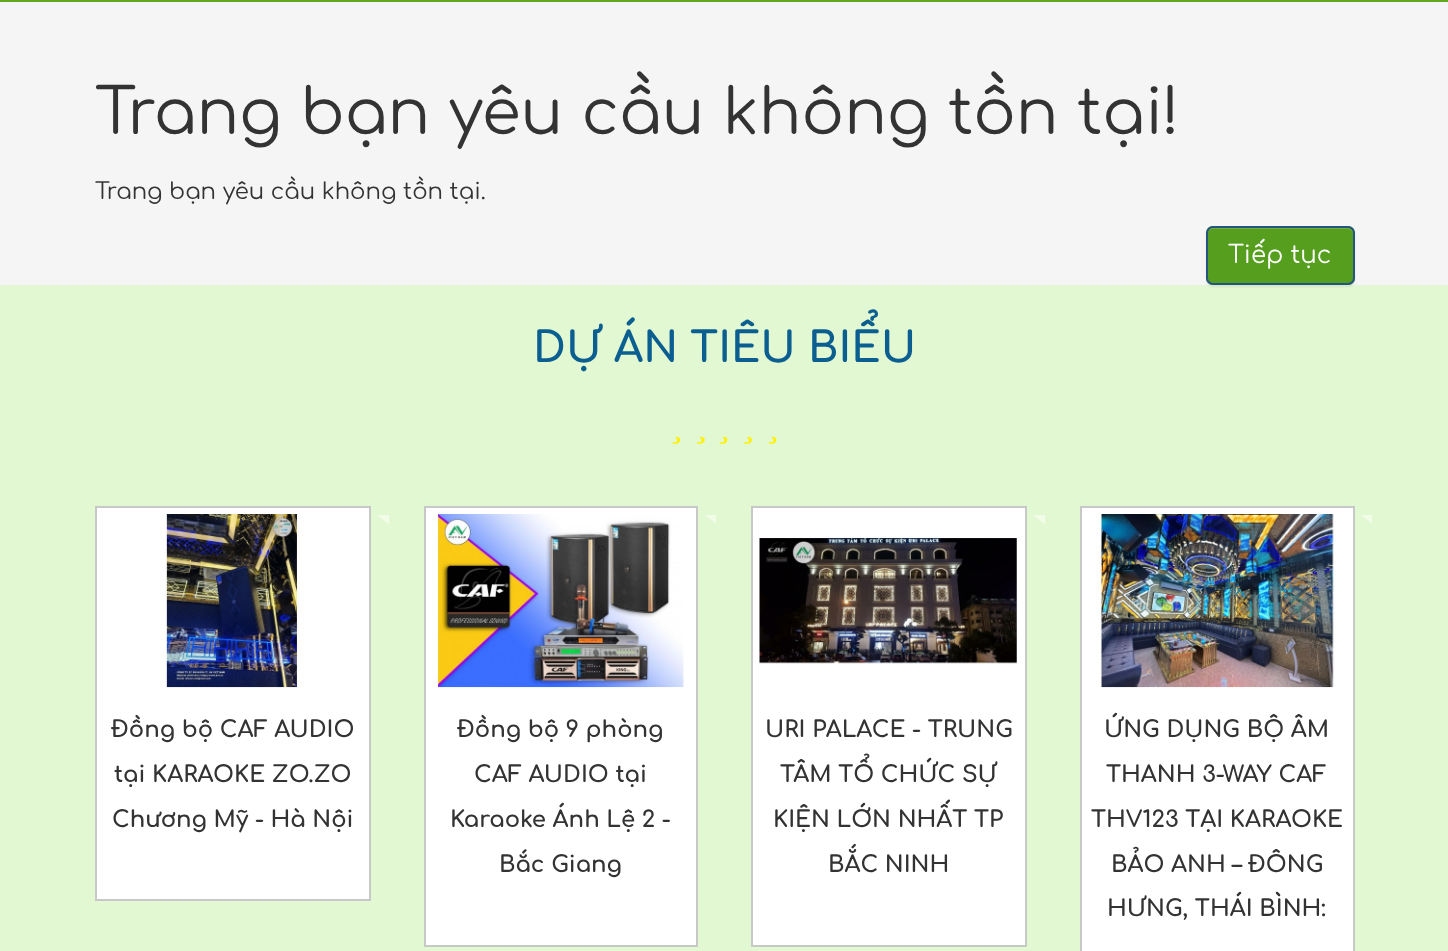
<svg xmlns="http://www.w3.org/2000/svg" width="1448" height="951">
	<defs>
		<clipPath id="clip1"><rect x="77" y="515" width="312" height="173" /></clipPath>
		<clipPath id="clip2"><rect x="406" y="515" width="310" height="173" /></clipPath>
		<clipPath id="clip3"><rect x="733" y="515" width="312" height="173" /></clipPath>
		<clipPath id="clip4"><rect x="1062" y="515" width="310" height="173" /></clipPath>
	</defs>
	<rect width="100%" height="100%" fill="#F5F5F5" />
	<rect x="0" y="0" width="1448" height="2" fill="#60A820" />
	<text x="95" y="134" font-family="Comfortaa" font-size="63" fill="#333333">Trang bạn yêu cầu không tồn tại!</text>
	<text x="95" y="199" font-family="Comfortaa" font-size="22.75" fill="#333333">Trang bạn yêu cầu không tồn tại.</text>
	<rect x="0" y="285" width="1448" height="666" fill="#E2F8D2" />
	<rect x="1206" y="228" width="149" height="59" rx="7" fill="#000000" fill-opacity="0.07" filter="blur(1px)" />
	<rect x="1206" y="226" width="149" height="59" rx="7" fill="#559E1E" />
	<path d="M1213 229H1348C1350 229 1353 232 1353 234V233C1353 230 1351 228 1348 228H1213C1210 228 1208 230 1208 233V234C1208 232 1210 229 1213 229Z" fill="#6FAD40" />
	<rect x="1207" y="227" width="147" height="57" rx="6" fill="none" stroke="#245580" stroke-width="2" />
	<text x="1228" y="263" font-family="Comfortaa" font-size="24.5" fill="#FFFFFF">Tiếp tục</text>
	<text x="533" y="362" font-family="Comfortaa" font-size="42" font-weight="700" fill="#0B5F90">DỰ ÁN TIÊU BIỂU</text>
	<image x="672" y="436" width="9" height="8" href="assets/img1.png" />
	<image x="697" y="436" width="8" height="8" href="assets/img2.png" />
	<image x="719" y="436" width="9" height="8" href="assets/img3.png" />
	<image x="744" y="436" width="8" height="8" href="assets/img4.png" />
	<image x="768" y="436" width="9" height="8" href="assets/img3.png" />
	<rect x="96" y="507" width="274" height="393" fill="#FFFFFF" stroke="#C8C8C8" stroke-width="2" />
	<image x="165" y="514" width="139" height="174" href="assets/img5.png" />
	<g clip-path="url(#clip1)">
		<path d="M404 156L863 494L606 684L147 346Z" fill="#F1FCE9" />
	</g>
	<g font-family="Comfortaa" font-size="22.75" font-weight="700" fill="#333333">
		<text x="111" y="737">Đồng bộ CAF AUDIO</text>
		<text x="114" y="782">tại KARAOKE ZO.ZO</text>
		<text x="112" y="827">Chương Mỹ - Hà Nội</text>
	</g>
	<rect x="425" y="507" width="272" height="439" fill="#FFFFFF" stroke="#C8C8C8" stroke-width="2" />
	<image x="432" y="514" width="252" height="174" href="assets/img6.png" />
	<g clip-path="url(#clip2)">
		<path d="M732 156L1191 494L934 684L475 346Z" fill="#F1FCE9" />
	</g>
	<g font-family="Comfortaa" font-size="22.75" font-weight="700" fill="#333333">
		<text x="457" y="737">Đồng bộ 9 phòng</text>
		<text x="474" y="782">CAF AUDIO tại</text>
		<text x="450" y="827">Karaoke Ánh Lệ 2 -</text>
		<text x="499" y="872">Bắc Giang</text>
	</g>
	<rect x="752" y="507" width="274" height="439" fill="#FFFFFF" stroke="#C8C8C8" stroke-width="2" />
	<g clip-path="url(#clip3)">
		<path d="M1060 156L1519 494L1262 684L803 346Z" fill="#F1FCE9" />
	</g>
	<image x="759" y="537" width="258" height="127" href="assets/img7.png" />
	<g font-family="Comfortaa" font-size="22.75" font-weight="700" fill="#333333">
		<text x="765" y="737">URI PALACE - TRUNG</text>
		<text x="780" y="782">TÂM TỔ CHỨC SỰ</text>
		<text x="773" y="827">KIỆN LỚN NHẤT TP</text>
		<text x="828" y="872">BẮC NINH</text>
	</g>
	<rect x="1081" y="507" width="273" height="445" fill="#FFFFFF" stroke="#C8C8C8" stroke-width="2" />
	<image x="1096" y="514" width="239" height="174" href="assets/img8.png" />
	<g clip-path="url(#clip4)">
		<path d="M1388 156L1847 494L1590 684L1131 346Z" fill="#F1FCE9" />
	</g>
	<g font-family="Comfortaa" font-size="22.75" font-weight="700" fill="#333333">
		<text x="1104" y="737">ỨNG DỤNG BỘ ÂM</text>
		<text x="1106" y="782">THANH 3-WAY CAF</text>
		<text x="1091" y="827">THV123 TẠI KARAOKE</text>
		<text x="1111" y="872">BẢO ANH – ĐÔNG</text>
		<text x="1107" y="916">HƯNG, THÁI BÌNH:</text>
	</g>
</svg>
